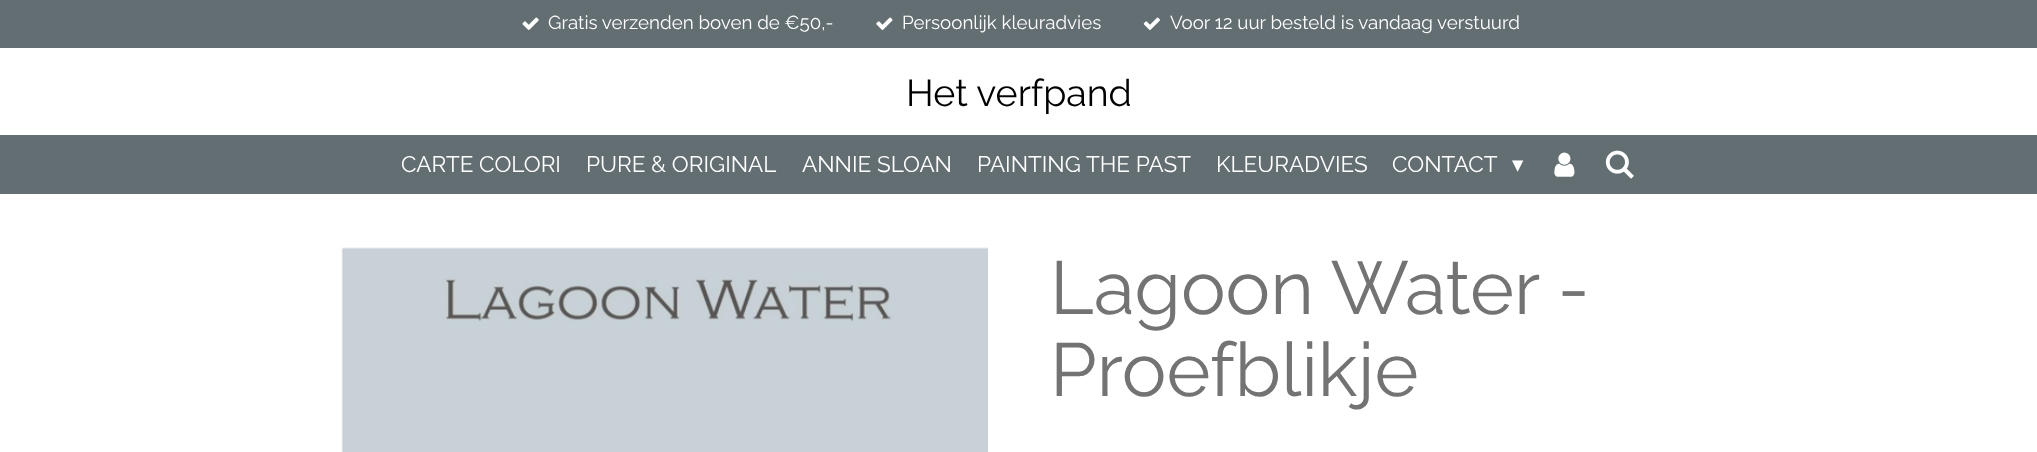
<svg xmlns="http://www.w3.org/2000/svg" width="2037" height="452">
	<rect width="100%" height="100%" fill="#FFFFFF" />
	<rect x="0" y="0" width="2037" height="48" fill="#636E72" />
	<image x="522" y="17" width="17" height="13" href="assets/img1.png" />
	<text x="548" y="29" font-family="Raleway" font-size="18.75" fill="#FFFFFF">Gratis verzenden boven de €50,-</text>
	<image x="876" y="17" width="17" height="13" href="assets/img2.png" />
	<text x="902" y="29" font-family="Raleway" font-size="18.75" fill="#FFFFFF">Persoonlijk kleuradvies</text>
	<image x="1143" y="17" width="17" height="13" href="assets/img3.png" />
	<text x="1170" y="29" font-family="Raleway" font-size="18.75" fill="#FFFFFF">Voor 12 uur besteld is vandaag verstuurd</text>
	<text x="906" y="106" font-family="Raleway" font-size="37.5" fill="#000000">Het verfpand</text>
	<rect x="0" y="135" width="2037" height="59" fill="#636E72" />
	<g font-family="Raleway" font-size="22.5" fill="#FFFFFF">
		<text x="401" y="172">CARTE COLORI</text>
		<text x="586" y="172">PURE &amp; ORIGINAL</text>
		<text x="802" y="172">ANNIE SLOAN</text>
		<text x="977" y="172">PAINTING THE PAST</text>
		<text x="1216" y="172">KLEURADVIES</text>
		<text x="1392" y="172">CONTACT</text>
	</g>
	<text x="1512" y="172" font-family="DejaVu Sans" font-size="22.5" fill="#FFFFFF">▾</text>
	<image x="1554" y="152" width="21" height="25" href="assets/img4.png" />
	<image x="1605" y="150" width="29" height="29" href="assets/img5.png" />
	<image x="341" y="247" width="647" height="205" href="assets/img6.png" />
	<g font-family="Raleway" font-size="75" fill="#737373">
		<text x="1050" y="314">Lagoon Water -</text>
		<text x="1050" y="396">Proefblikje</text>
	</g>
</svg>
